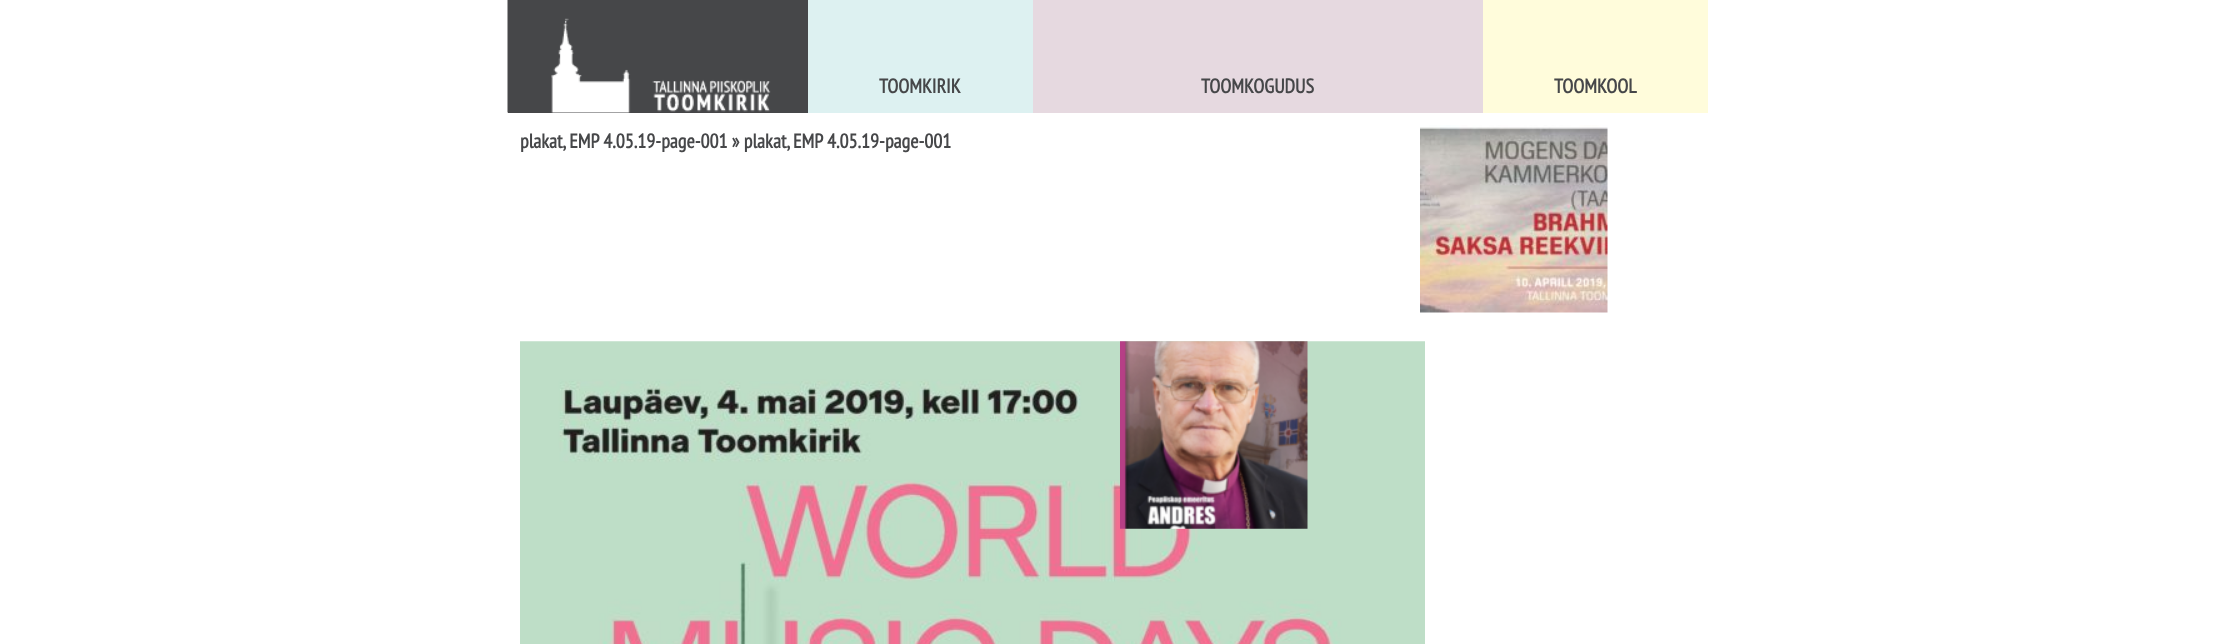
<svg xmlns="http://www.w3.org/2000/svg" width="2214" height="644">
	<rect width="100%" height="100%" fill="#FFFFFF" />
	<rect x="508" y="0" width="300" height="113" fill="#464749" />
	<image x="507" y="0" width="264" height="113" href="assets/img1.png" />
	<rect x="808" y="0" width="225" height="113" fill="#DDF1F1" />
	<text x="879" y="93" font-family="PT Sans Narrow" font-size="20" font-weight="700" fill="#464749">TOOMKIRIK</text>
	<rect x="1033" y="0" width="450" height="113" fill="#E6D9E0" />
	<text x="1201" y="93" font-family="PT Sans Narrow" font-size="20" font-weight="700" fill="#464749">TOOMKOGUDUS</text>
	<rect x="1483" y="0" width="225" height="113" fill="#FFFCDB" />
	<g font-family="PT Sans Narrow" font-size="20" font-weight="700" fill="#464749">
		<text x="1554" y="93">TOOMKOOL</text>
		<text x="520" y="148">plakat, EMP 4.05.19-page-001 » plakat, EMP 4.05.19-page-001</text>
	</g>
	<image x="1420" y="125" width="188" height="188" href="assets/img2.png" />
	<image x="520" y="341" width="905" height="303" href="assets/img3.png" />
	<image x="1120" y="341" width="188" height="188" href="assets/img4.png" />
</svg>
